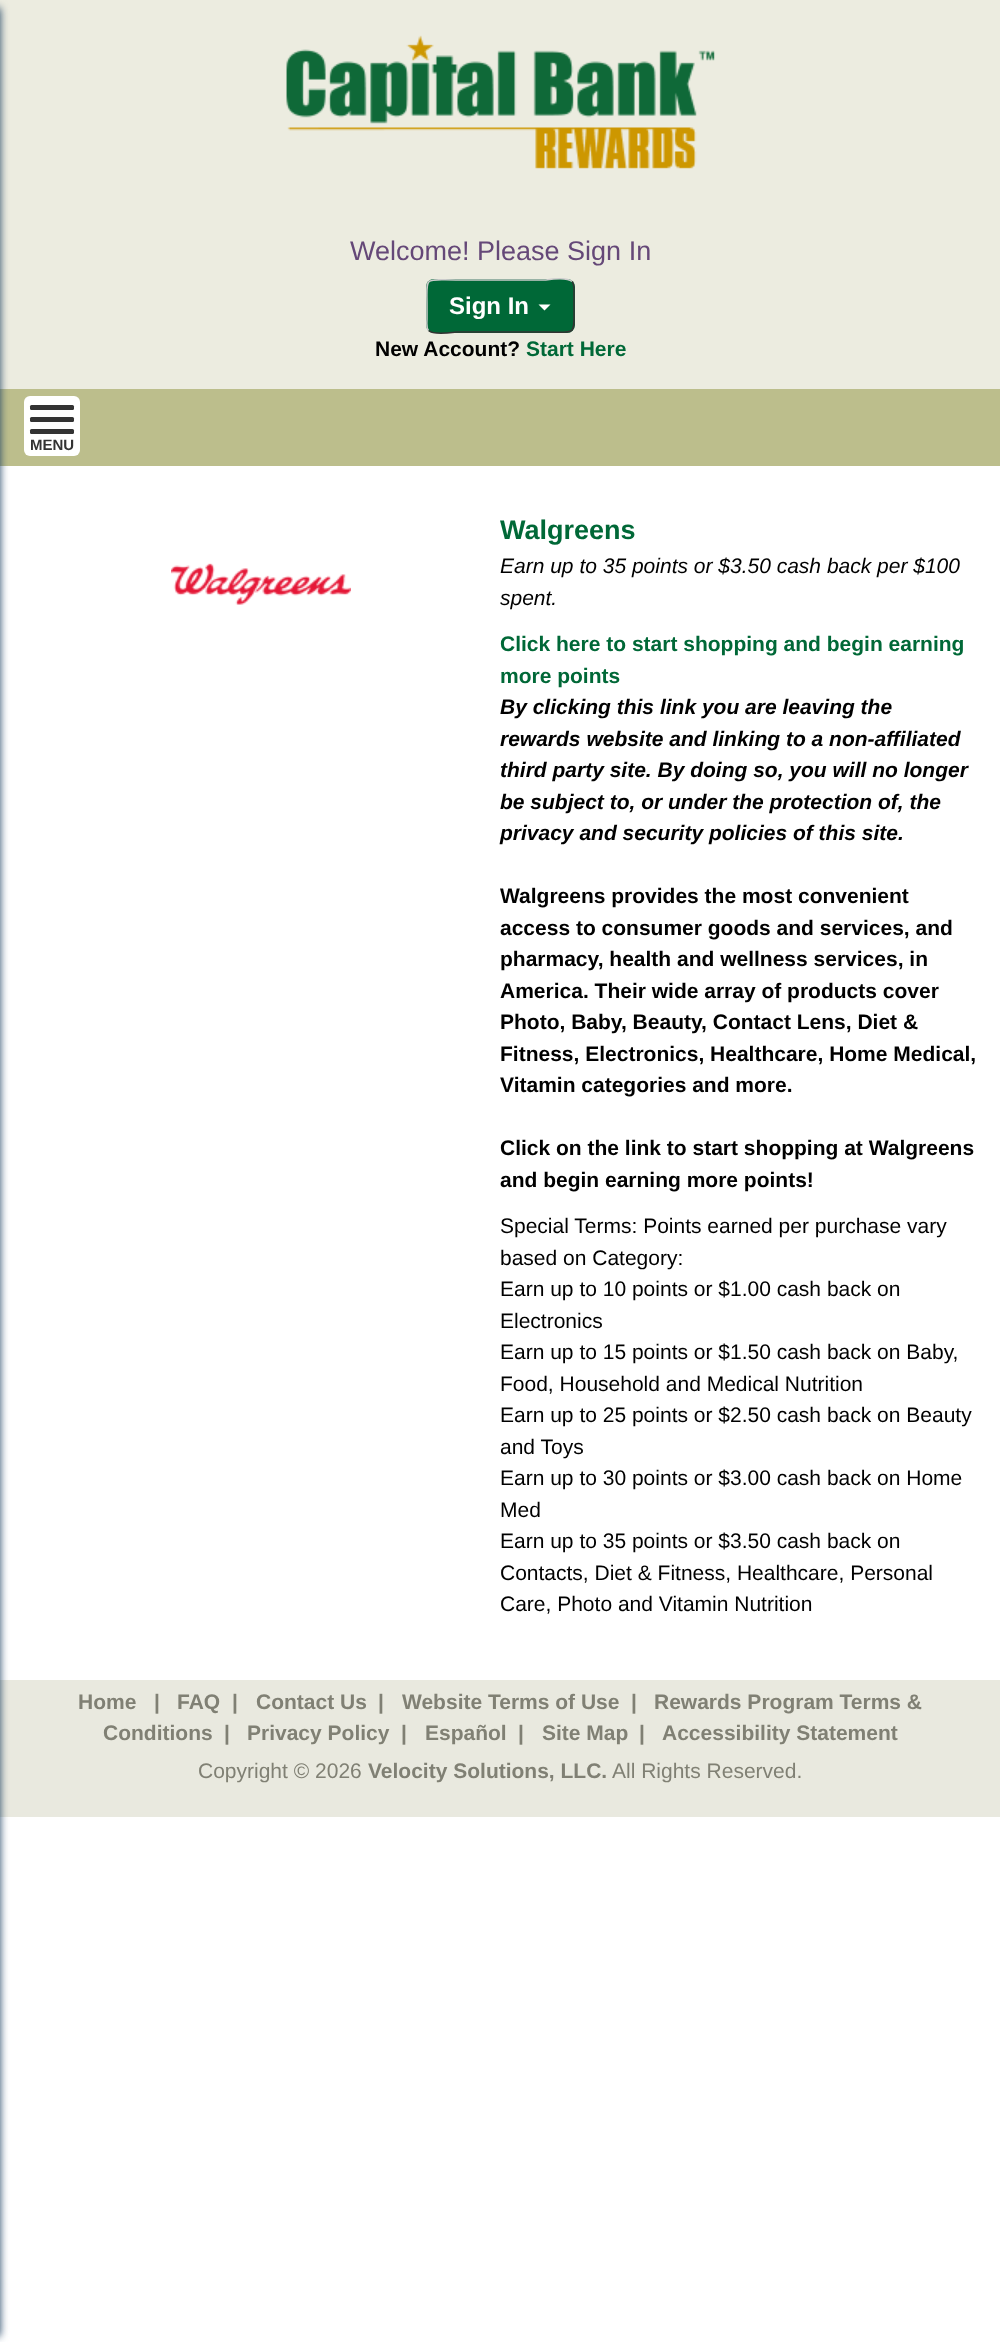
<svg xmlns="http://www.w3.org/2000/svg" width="1000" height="2342">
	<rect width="100%" height="100%" fill="#FFFFFF" />
	<rect x="0" y="0" width="1000" height="389" fill="#ECECE0" />
	<rect x="0" y="389" width="1000" height="77" fill="#BCBE8C" />
	<rect x="0" y="1680" width="1000" height="137" fill="#E9E9DF" />
	<rect x="-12" y="8" width="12" height="2328" fill="#1F4164" filter="blur(4px)" />
	<image x="286" y="35" width="429" height="134" href="assets/img1.png" />
	<text x="350" y="260" font-family="Liberation Sans" font-size="27" fill="#654878">Welcome! Please Sign In</text>
	<rect x="426" y="279" width="149" height="54" rx="8" fill="#006837" />
	<path d="M572 281.5C574.5 284.5 574 289.5 574 293V306C574 336.5 577.5 332 545 332H456C455 332 434 335.5 428.5 330.5" fill="none" stroke="#333333" stroke-width="1.5" />
	<path d="M428.5 330.5C426 327.5 427 322.5 427 319V306C427 275.5 423 280 456 280H545C545.5 280 566.5 276.5 572 281.5" fill="none" stroke="#CCCCCC" stroke-width="1.5" />
	<text x="449" y="314" font-family="Liberation Sans" font-size="24" font-weight="700" fill="#FFFFFF">Sign In</text>
	<path d="M538.5 304.5H550.5L544.5 310.5Z" fill="#FFFFFF" />
	<text x="375" y="356" font-family="Liberation Sans" font-size="21" font-weight="700" fill="#000000">New Account?</text>
	<text x="526" y="356" font-family="Liberation Sans" font-size="21" font-weight="700" fill="#006837">Start Here</text>
	<rect x="24" y="396" width="56" height="60" rx="6" fill="#FFFFFF" />
	<rect x="30" y="405" width="44" height="5" rx="1.5" fill="#333333" />
	<rect x="30" y="417" width="44" height="5" rx="1.5" fill="#333333" />
	<rect x="30" y="429" width="44" height="5" rx="1.5" fill="#333333" />
	<text x="30" y="450" font-family="Liberation Sans" font-size="15" font-weight="700" fill="#333333">MENU</text>
	<image x="171" y="563" width="180" height="42" href="assets/img2.png" />
	<text x="500" y="539" font-family="Liberation Sans" font-size="27" font-weight="700" fill="#006837">Walgreens</text>
	<g font-family="Liberation Sans" font-size="21" font-style="italic" fill="#000000">
		<text x="500" y="573">Earn up to 35 points or $3.50 cash back per $100</text>
		<text x="500" y="605">spent.</text>
	</g>
	<g font-family="Liberation Sans" font-size="21" font-weight="700" fill="#006837">
		<text x="500" y="651">Click here to start shopping and begin earning</text>
		<text x="500" y="683">more points</text>
	</g>
	<g font-family="Liberation Sans" font-size="21" font-weight="700" font-style="italic" fill="#000000">
		<text x="500" y="714">By clicking this link you are leaving the</text>
		<text x="500" y="746">rewards website and linking to a non-affiliated</text>
		<text x="500" y="777">third party site. By doing so, you will no longer</text>
		<text x="500" y="809">be subject to, or under the protection of, the</text>
		<text x="500" y="840">privacy and security policies of this site.</text>
	</g>
	<g font-family="Liberation Sans" font-size="21" font-weight="700" fill="#000000">
		<text x="500" y="903">Walgreens provides the most convenient</text>
		<text x="500" y="935">access to consumer goods and services, and</text>
		<text x="500" y="966">pharmacy, health and wellness services, in</text>
		<text x="500" y="998">America. Their wide array of products cover</text>
		<text x="500" y="1029">Photo, Baby, Beauty, Contact Lens, Diet &amp;</text>
		<text x="500" y="1061">Fitness, Electronics, Healthcare, Home Medical,</text>
		<text x="500" y="1092">Vitamin categories and more.</text>
		<text x="500" y="1155">Click on the link to start shopping at Walgreens</text>
		<text x="500" y="1187">and begin earning more points!</text>
	</g>
	<g font-family="Liberation Sans" font-size="21" fill="#000000">
		<text x="500" y="1233">Special Terms: Points earned per purchase vary</text>
		<text x="500" y="1265">based on Category:</text>
		<text x="500" y="1296">Earn up to 10 points or $1.00 cash back on</text>
		<text x="500" y="1328">Electronics</text>
		<text x="500" y="1359">Earn up to 15 points or $1.50 cash back on Baby,</text>
		<text x="500" y="1391">Food, Household and Medical Nutrition</text>
		<text x="500" y="1422">Earn up to 25 points or $2.50 cash back on Beauty</text>
		<text x="500" y="1454">and Toys</text>
		<text x="500" y="1485">Earn up to 30 points or $3.00 cash back on Home</text>
		<text x="500" y="1517">Med</text>
		<text x="500" y="1548">Earn up to 35 points or $3.50 cash back on</text>
		<text x="500" y="1580">Contacts, Diet &amp; Fitness, Healthcare, Personal</text>
		<text x="500" y="1611">Care, Photo and Vitamin Nutrition</text>
	</g>
	<g font-family="Liberation Sans" font-size="21" font-weight="700" fill="#808074">
		<text x="78" y="1709">Home</text>
		<text x="154" y="1709">|</text>
		<text x="177" y="1709">FAQ</text>
		<text x="232" y="1709">|</text>
		<text x="256" y="1709">Contact Us</text>
		<text x="378" y="1709">|</text>
		<text x="402" y="1709">Website Terms of Use</text>
		<text x="631" y="1709">|</text>
		<text x="654" y="1709">Rewards Program Terms &amp;</text>
		<text x="103" y="1740">Conditions</text>
		<text x="224" y="1740">|</text>
		<text x="247" y="1740">Privacy Policy</text>
		<text x="401" y="1740">|</text>
		<text x="425" y="1740">Español</text>
		<text x="518" y="1740">|</text>
		<text x="542" y="1740">Site Map</text>
		<text x="639" y="1740">|</text>
		<text x="662" y="1740">Accessibility Statement</text>
	</g>
	<text x="198" y="1778" font-family="Liberation Sans" font-size="21" fill="#808074">Copyright © 2026</text>
	<text x="368" y="1778" font-family="Liberation Sans" font-size="21" font-weight="700" fill="#808074">Velocity Solutions, LLC.</text>
	<text x="612" y="1778" font-family="Liberation Sans" font-size="21" fill="#808074">All Rights Reserved.</text>
</svg>
